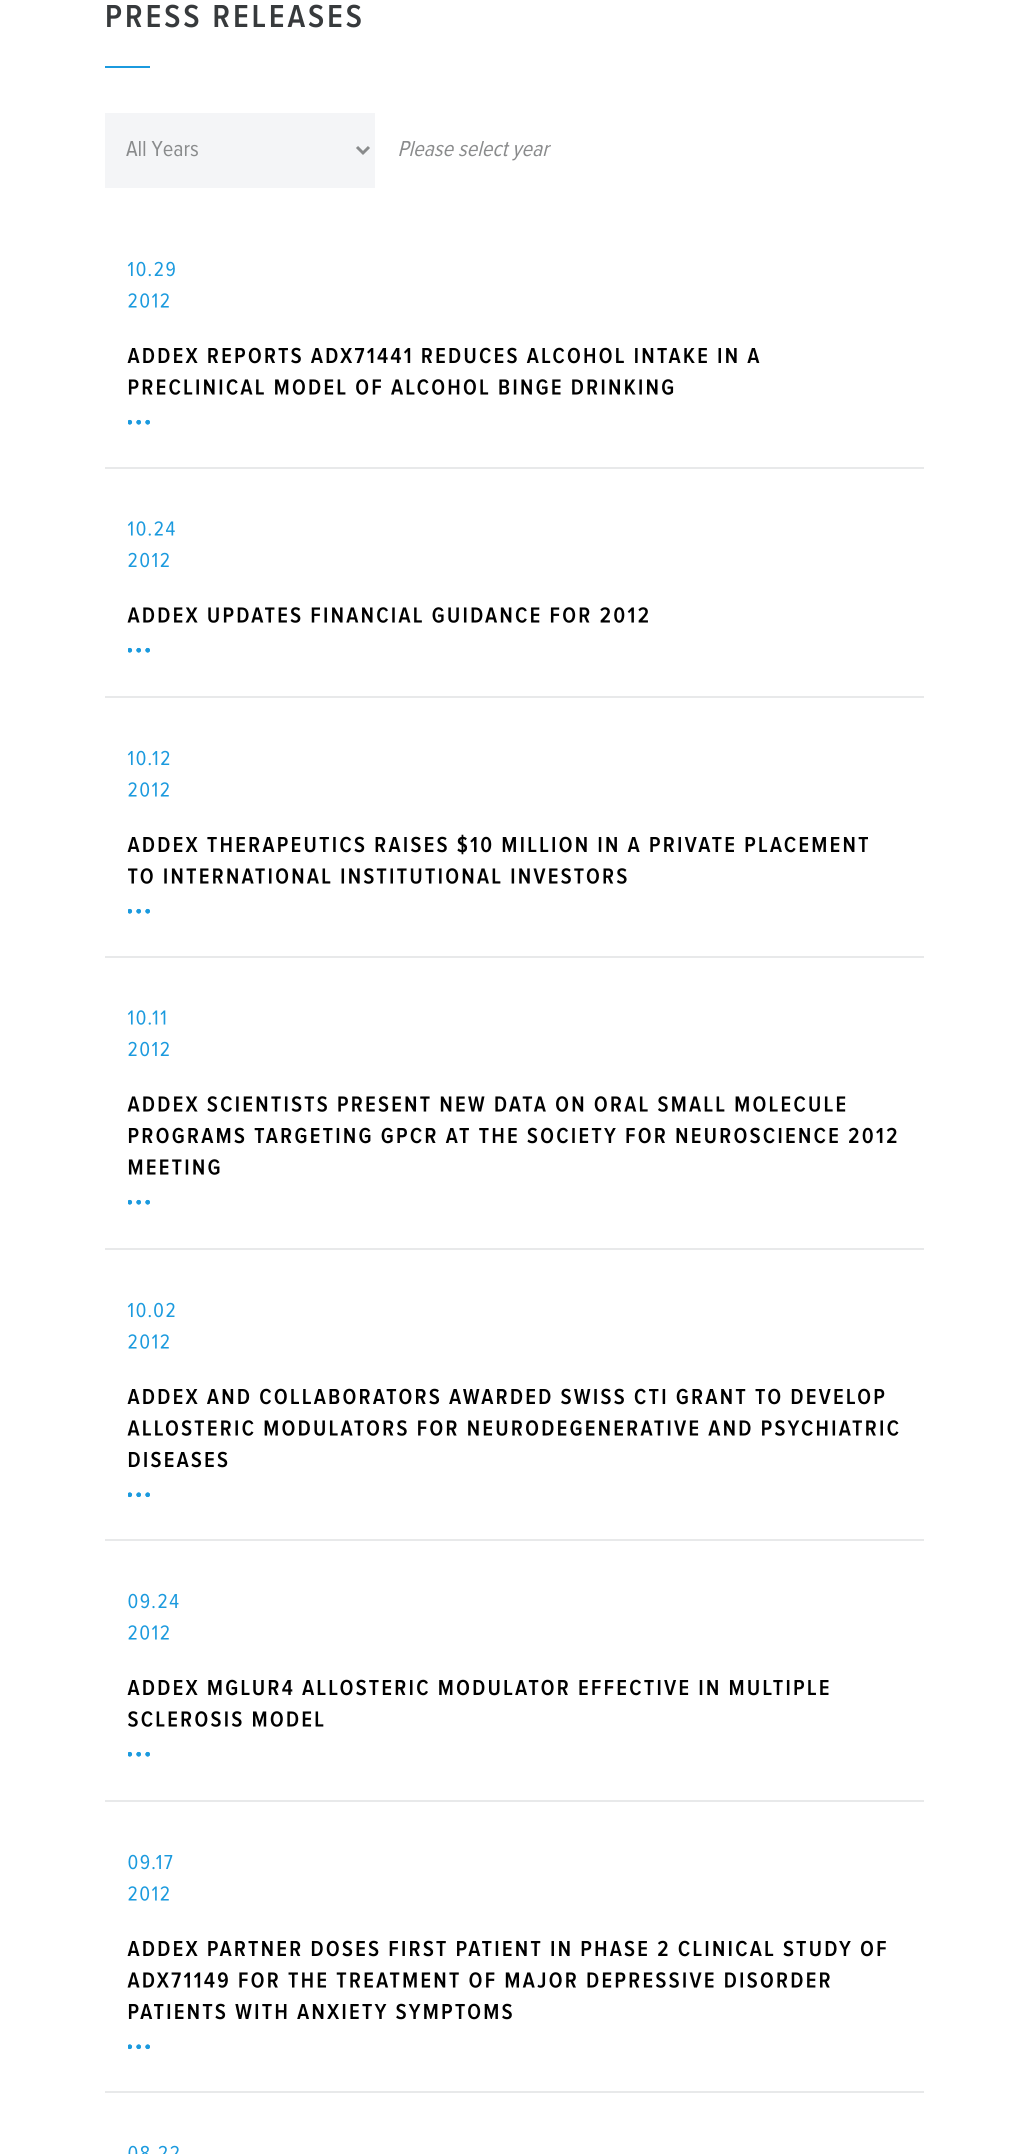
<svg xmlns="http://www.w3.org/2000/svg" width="1029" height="2154">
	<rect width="100%" height="100%" fill="#FFFFFF" />
	<image x="107" y="4" width="254" height="24" href="assets/img1.png" />
	<rect x="105" y="66" width="45" height="2" fill="#1B9ADE" />
	<rect x="105" y="113" width="270" height="75" fill="#F4F5F7" />
	<path d="M357 147L363 153L369 147" fill="none" stroke="#898B8C" stroke-width="3" />
	<image x="126" y="141" width="72" height="16" href="assets/img2.png" />
	<image x="399" y="141" width="152" height="20" href="assets/img3.png" />
	<rect x="105" y="467" width="819" height="2" fill="#E8E9EA" />
	<image x="127" y="261" width="48" height="16" href="assets/img4.png" />
	<image x="128" y="293" width="41" height="15" href="assets/img5.png" />
	<image x="127" y="347" width="633" height="17" href="assets/img6.png" />
	<image x="128" y="379" width="546" height="16" href="assets/img7.png" />
	<image x="128" y="419" width="22" height="6" href="assets/img8.png" />
	<rect x="105" y="696" width="819" height="2" fill="#E8E9EA" />
	<image x="127" y="521" width="48" height="15" href="assets/img9.png" />
	<image x="128" y="552" width="41" height="16" href="assets/img10.png" />
	<image x="127" y="607" width="521" height="16" href="assets/img11.png" />
	<image x="128" y="647" width="22" height="6" href="assets/img8.png" />
	<rect x="105" y="956" width="819" height="2" fill="#E8E9EA" />
	<image x="127" y="750" width="43" height="16" href="assets/img12.png" />
	<image x="128" y="782" width="41" height="15" href="assets/img5.png" />
	<image x="127" y="834" width="741" height="21" href="assets/img13.png" />
	<image x="128" y="868" width="499" height="16" href="assets/img14.png" />
	<image x="128" y="908" width="22" height="6" href="assets/img8.png" />
	<rect x="105" y="1248" width="819" height="2" fill="#E8E9EA" />
	<image x="127" y="1010" width="39" height="15" href="assets/img15.png" />
	<image x="128" y="1041" width="41" height="16" href="assets/img10.png" />
	<image x="127" y="1096" width="719" height="16" href="assets/img16.png" />
	<image x="128" y="1127" width="769" height="17" href="assets/img17.png" />
	<image x="128" y="1159" width="92" height="16" href="assets/img18.png" />
	<image x="128" y="1199" width="22" height="6" href="assets/img8.png" />
	<rect x="105" y="1539" width="819" height="2" fill="#E8E9EA" />
	<image x="127" y="1302" width="48" height="16" href="assets/img19.png" />
	<image x="128" y="1334" width="41" height="15" href="assets/img5.png" />
	<image x="127" y="1388" width="758" height="17" href="assets/img20.png" />
	<image x="127" y="1420" width="772" height="16" href="assets/img21.png" />
	<image x="128" y="1451" width="100" height="17" href="assets/img22.png" />
	<image x="128" y="1492" width="22" height="6" href="assets/img23.png" />
	<rect x="105" y="1800" width="819" height="2" fill="#E8E9EA" />
	<image x="128" y="1593" width="51" height="16" href="assets/img24.png" />
	<image x="128" y="1625" width="41" height="15" href="assets/img5.png" />
	<image x="127" y="1679" width="702" height="17" href="assets/img25.png" />
	<image x="128" y="1711" width="196" height="16" href="assets/img26.png" />
	<image x="128" y="1751" width="22" height="6" href="assets/img8.png" />
	<rect x="105" y="2091" width="819" height="2" fill="#E8E9EA" />
	<image x="128" y="1854" width="45" height="16" href="assets/img27.png" />
	<image x="128" y="1886" width="41" height="15" href="assets/img5.png" />
	<image x="127" y="1940" width="759" height="17" href="assets/img28.png" />
	<image x="127" y="1972" width="703" height="16" href="assets/img29.png" />
	<image x="128" y="2003" width="384" height="17" href="assets/img30.png" />
	<image x="128" y="2044" width="22" height="6" href="assets/img23.png" />
	<image x="128" y="2145" width="51" height="9" href="assets/img31.png" />
</svg>
